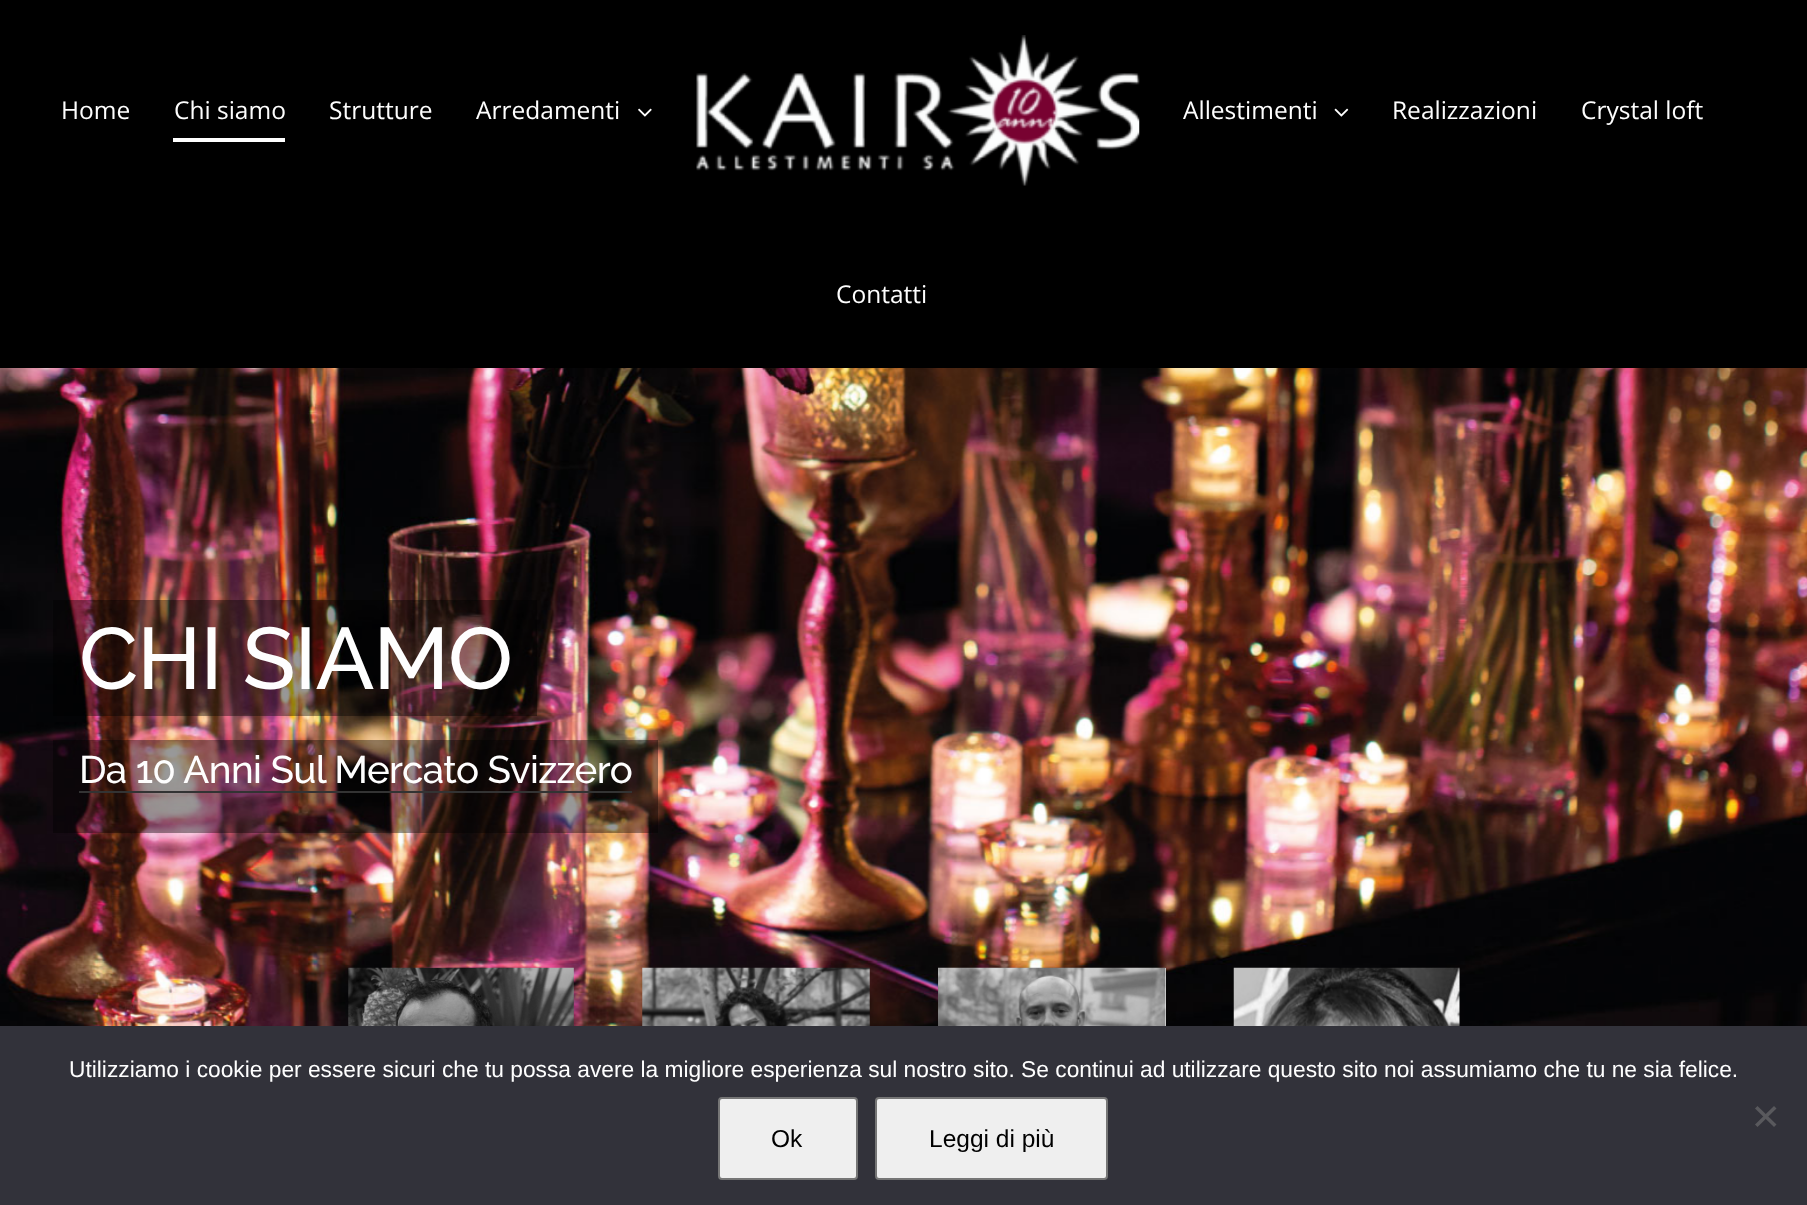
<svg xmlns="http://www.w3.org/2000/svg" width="1807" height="1205">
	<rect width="100%" height="100%" fill="#FFFFFF" />
	<rect x="0" y="0" width="1807" height="368" fill="#000000" />
	<g font-family="Open Sans" font-size="24.5" fill="#FEFEFE">
		<text x="61" y="119">Home</text>
		<text x="174" y="119">Chi siamo</text>
	</g>
	<rect x="173" y="138" width="112" height="4" fill="#FFFFFF" />
	<g font-family="Open Sans" font-size="24.5" fill="#FEFEFE">
		<text x="329" y="119">Strutture</text>
		<text x="476" y="119">Arredamenti</text>
	</g>
	<image x="638" y="108" width="14" height="9" href="assets/img1.png" />
	<image x="696" y="35" width="444" height="151" href="assets/img2.png" />
	<text x="1183" y="119" font-family="Open Sans" font-size="24.5" fill="#FEFEFE">Allestimenti</text>
	<image x="1334" y="108" width="15" height="9" href="assets/img3.png" />
	<g font-family="Open Sans" font-size="24.5" fill="#FEFEFE">
		<text x="1392" y="119">Realizzazioni</text>
		<text x="1581" y="119">Crystal loft</text>
		<text x="836" y="303">Contatti</text>
	</g>
	<image x="0" y="368" width="1807" height="658" href="assets/img4.png" />
	<rect x="53" y="600" width="484" height="116" fill="#000000" fill-opacity="0.4" />
	<text x="79" y="689" font-family="Raleway" font-size="87" font-weight="100" letter-spacing="-1.25" fill="#FEFEFE">CHI SIAMO</text>
	<rect x="53" y="740" width="605" height="93" fill="#000000" fill-opacity="0.4" />
	<rect x="79" y="791" width="553" height="2" fill="#333333" />
	<text x="79" y="783" font-family="Raleway" font-size="38.5" font-weight="100" letter-spacing="-0.6" fill="#FEFEFE">Da 10 Anni Sul Mercato Svizzero</text>
	<image x="348" y="967" width="226" height="59" href="assets/img5.png" />
	<image x="642" y="967" width="228" height="59" href="assets/img6.png" />
	<rect x="1165" y="968" width="1" height="58" fill="#FFFFFF" />
	<image x="938" y="967" width="228" height="59" href="assets/img7.png" />
	<image x="1233" y="967" width="227" height="59" href="assets/img8.png" />
	<rect x="0" y="1026" width="1807" height="179" fill="#32323A" />
	<text x="69" y="1077" font-family="Liberation Sans" font-size="22.75" fill="#FEFEFE">Utilizziamo i cookie per essere sicuri che tu possa avere la migliore esperienza sul nostro sito. Se continui ad utilizzare questo sito noi assumiamo che tu ne sia felice.</text>
	<path d="M1774 1106L1776.5 1108.5L1757.5 1127L1755 1124.5Z" fill="#59595D" />
	<path d="M1755 1108.5L1757.5 1106L1776.5 1124.5L1774 1127Z" fill="#59595D" />
	<rect x="719" y="1098" width="138" height="81" rx="3" fill="#EFEFEF" stroke="#767676" stroke-width="2" />
	<text x="771" y="1147" font-family="Liberation Sans" font-size="24.5" fill="#000000">Ok</text>
	<rect x="876" y="1098" width="231" height="81" rx="3" fill="#EFEFEF" stroke="#767676" stroke-width="2" />
	<text x="929" y="1147" font-family="Liberation Sans" font-size="24.5" fill="#000000">Leggi di più</text>
</svg>
